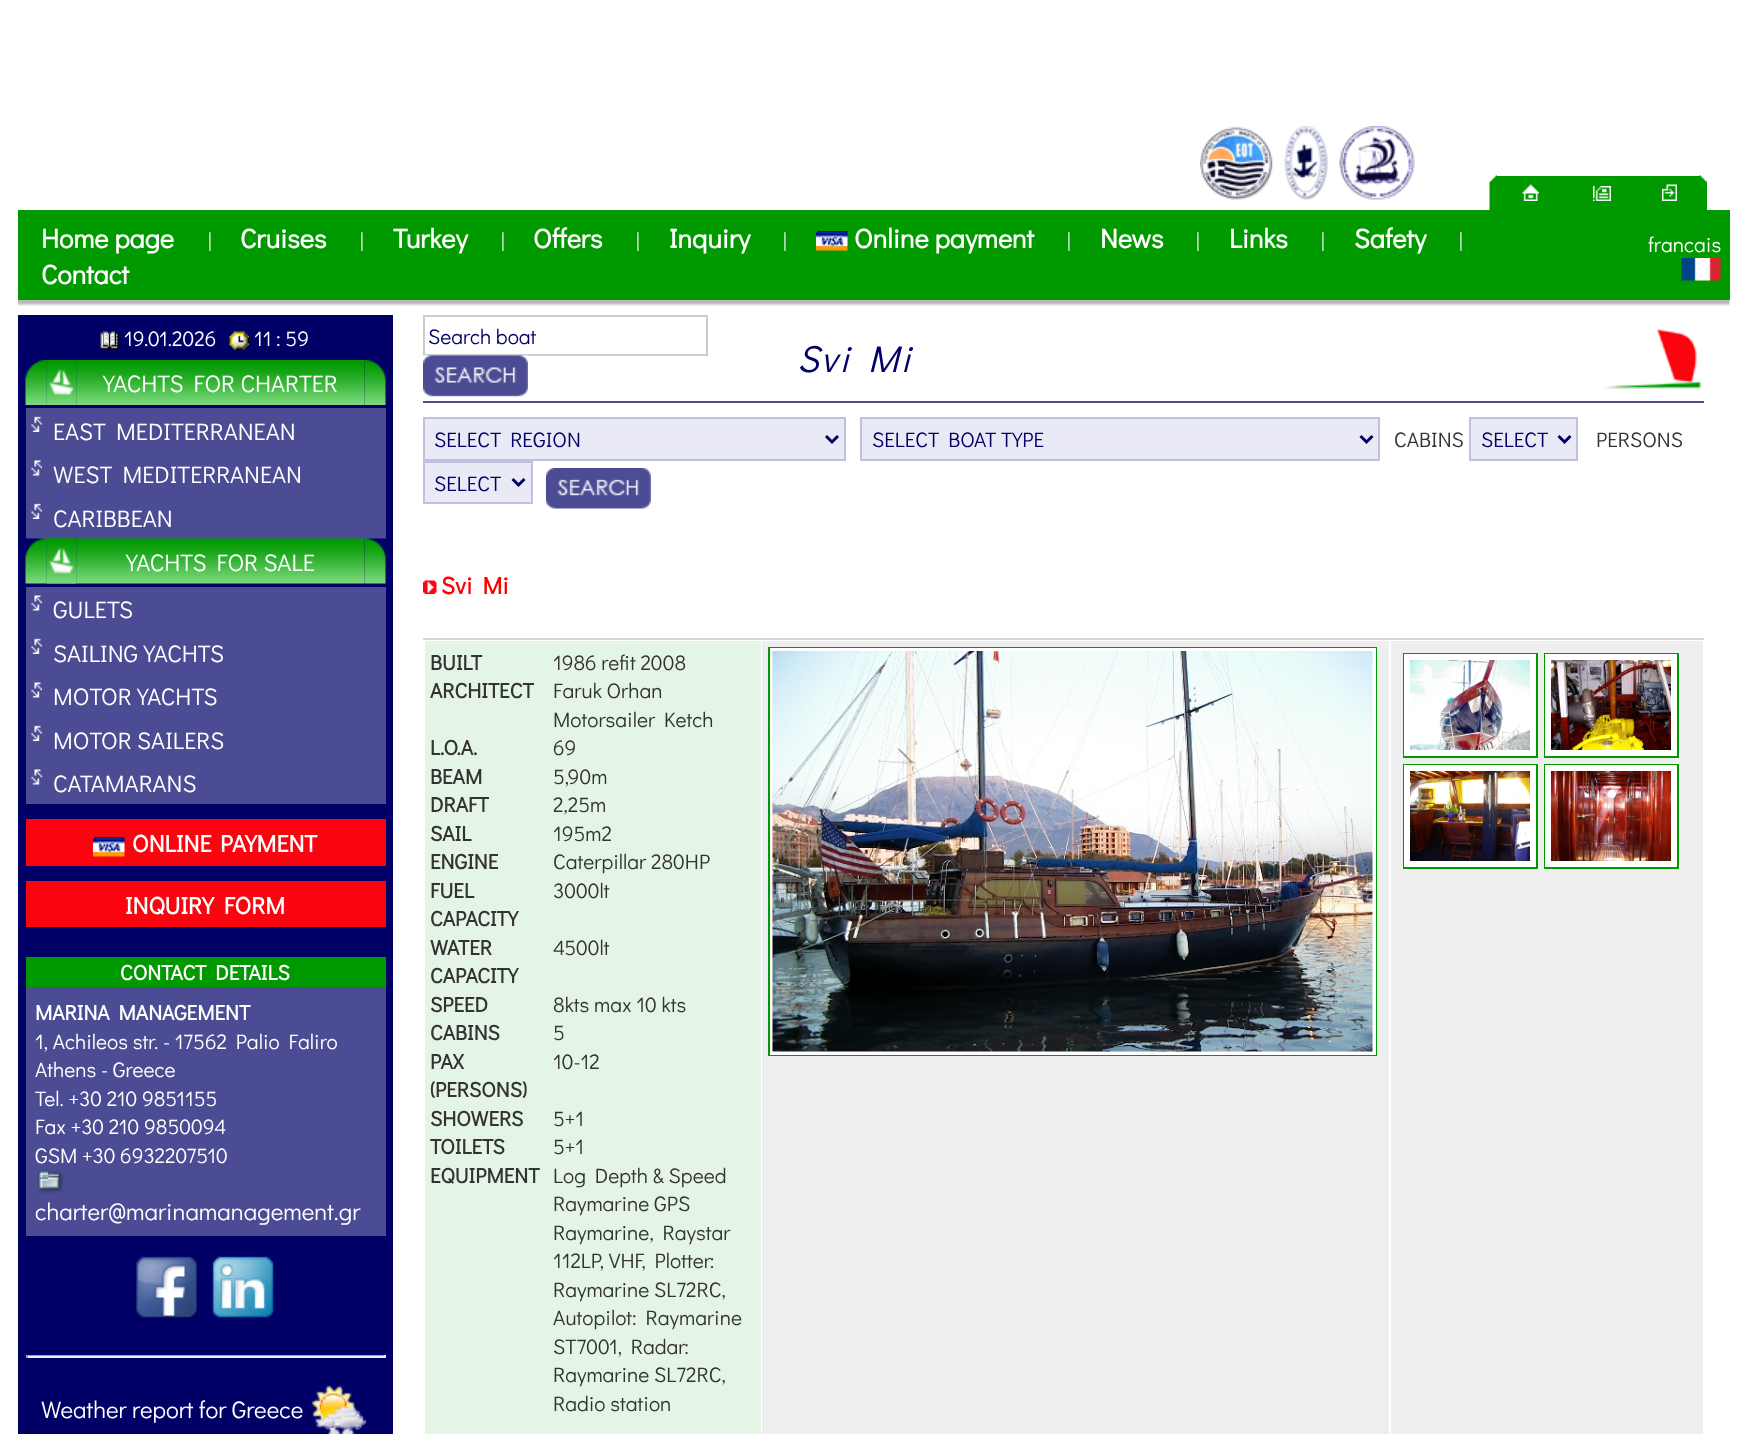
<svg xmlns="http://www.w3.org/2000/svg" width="1747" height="1434">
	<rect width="100%" height="100%" fill="#FFFFFF" />
	<image x="1200" y="126" width="75" height="75" href="assets/img1.png" />
	<image x="1284" y="126" width="44" height="74" href="assets/img2.png" />
	<image x="1338" y="126" width="77" height="75" href="assets/img3.png" />
	<image x="1489" y="175" width="8" height="35" href="assets/img4.png" />
	<rect x="1497" y="176" width="203" height="34" fill="#009900" />
	<image x="1522" y="184" width="17" height="17" href="assets/img5.png" />
	<image x="1699" y="175" width="8" height="35" href="assets/img6.png" />
	<image x="1593" y="186" width="18" height="15" href="assets/img7.png" />
	<image x="1662" y="184" width="15" height="17" href="assets/img8.png" />
	<rect x="18" y="210" width="1712" height="90" fill="#009900" />
	<text x="41" y="248" font-family="Didact Gothic" font-size="27" font-weight="700" fill="#FFFFFF">Home page</text>
	<text x="208" y="248" font-family="Didact Gothic" font-size="21" fill="#FFFFFF">|</text>
	<text x="240" y="248" font-family="Didact Gothic" font-size="27" font-weight="700" fill="#FFFFFF">Cruises</text>
	<text x="360" y="248" font-family="Didact Gothic" font-size="21" fill="#FFFFFF">|</text>
	<text x="393" y="248" font-family="Didact Gothic" font-size="27" font-weight="700" fill="#FFFFFF">Turkey</text>
	<text x="501" y="248" font-family="Didact Gothic" font-size="21" fill="#FFFFFF">|</text>
	<text x="533" y="248" font-family="Didact Gothic" font-size="27" font-weight="700" fill="#FFFFFF">Offers</text>
	<text x="636" y="248" font-family="Didact Gothic" font-size="21" fill="#FFFFFF">|</text>
	<text x="669" y="248" font-family="Didact Gothic" font-size="27" font-weight="700" fill="#FFFFFF">Inquiry</text>
	<text x="783" y="248" font-family="Didact Gothic" font-size="21" fill="#FFFFFF">|</text>
	<image x="816" y="231" width="32" height="20" href="assets/img9.png" />
	<text x="854" y="248" font-family="Didact Gothic" font-size="27" font-weight="700" fill="#FFFFFF">Online payment</text>
	<text x="1067" y="248" font-family="Didact Gothic" font-size="21" fill="#FFFFFF">|</text>
	<text x="1100" y="248" font-family="Didact Gothic" font-size="27" font-weight="700" fill="#FFFFFF">News</text>
	<text x="1196" y="248" font-family="Didact Gothic" font-size="21" fill="#FFFFFF">|</text>
	<text x="1229" y="248" font-family="Didact Gothic" font-size="27" font-weight="700" fill="#FFFFFF">Links</text>
	<text x="1321" y="248" font-family="Didact Gothic" font-size="21" fill="#FFFFFF">|</text>
	<text x="1354" y="248" font-family="Didact Gothic" font-size="27" font-weight="700" fill="#FFFFFF">Safety</text>
	<text x="1459" y="248" font-family="Didact Gothic" font-size="21" fill="#FFFFFF">|</text>
	<text x="41" y="284" font-family="Didact Gothic" font-size="27" font-weight="700" fill="#FFFFFF">Contact</text>
	<text x="1648" y="252" font-family="Didact Gothic" font-size="21" fill="#FFFFFF">francais</text>
	<image x="1681" y="258" width="40" height="23" href="assets/img10.png" />
	<image x="18" y="300" width="1712" height="6" href="assets/img11.png" />
	<rect x="18" y="315" width="375" height="1119" fill="#000066" />
	<image x="100" y="331" width="19" height="19" href="assets/img12.png" />
	<text x="124" y="346" font-family="Didact Gothic" font-size="21" fill="#FFFFFF">19.01.2026</text>
	<image x="229" y="331" width="20" height="19" href="assets/img13.png" />
	<text x="254" y="346" font-family="Didact Gothic" font-size="21" fill="#FFFFFF">11 : 59</text>
	<image x="46" y="360" width="31" height="45" href="assets/img15.png" />
	<image x="25" y="360" width="22" height="45" href="assets/img14.png" />
	<image x="76" y="360" width="289" height="45" href="assets/img17.png" />
	<image x="46" y="360" width="31" height="45" href="assets/img16.png" />
	<text x="103" y="392" font-family="Didact Gothic" font-size="24" fill="#FFFFFF">YACHTS FOR CHARTER</text>
	<image x="364" y="360" width="22" height="45" href="assets/img18.png" />
	<rect x="26" y="408" width="360" height="131" fill="#4C4C94" />
	<image x="31" y="416" width="11" height="16" href="assets/img19.png" />
	<text x="53" y="440" font-family="Didact Gothic" font-size="24" fill="#FFFFFF">EAST MEDITERRANEAN</text>
	<image x="31" y="460" width="11" height="16" href="assets/img20.png" />
	<text x="53" y="483" font-family="Didact Gothic" font-size="24" fill="#FFFFFF">WEST MEDITERRANEAN</text>
	<image x="31" y="503" width="11" height="16" href="assets/img19.png" />
	<text x="53" y="527" font-family="Didact Gothic" font-size="24" fill="#FFFFFF">CARIBBEAN</text>
	<image x="46" y="538" width="31" height="46" href="assets/img22.png" />
	<image x="25" y="538" width="22" height="46" href="assets/img21.png" />
	<image x="76" y="538" width="289" height="46" href="assets/img24.png" />
	<image x="46" y="538" width="31" height="46" href="assets/img23.png" />
	<text x="126" y="571" font-family="Didact Gothic" font-size="24" fill="#FFFFFF">YACHTS FOR SALE</text>
	<image x="364" y="538" width="22" height="46" href="assets/img25.png" />
	<rect x="26" y="587" width="360" height="217" fill="#4C4C94" />
	<image x="31" y="595" width="11" height="16" href="assets/img20.png" />
	<text x="53" y="618" font-family="Didact Gothic" font-size="24" fill="#FFFFFF">GULETS</text>
	<image x="31" y="638" width="11" height="16" href="assets/img19.png" />
	<text x="53" y="662" font-family="Didact Gothic" font-size="24" fill="#FFFFFF">SAILING YACHTS</text>
	<image x="31" y="682" width="11" height="16" href="assets/img20.png" />
	<text x="53" y="705" font-family="Didact Gothic" font-size="24" fill="#FFFFFF">MOTOR YACHTS</text>
	<image x="31" y="725" width="11" height="16" href="assets/img19.png" />
	<text x="53" y="749" font-family="Didact Gothic" font-size="24" fill="#FFFFFF">MOTOR SAILERS</text>
	<image x="31" y="769" width="11" height="16" href="assets/img20.png" />
	<text x="53" y="792" font-family="Didact Gothic" font-size="24" fill="#FFFFFF">CATAMARANS</text>
	<rect x="26" y="819" width="360" height="47" fill="#FA050F" />
	<image x="93" y="837" width="32" height="20" href="assets/img26.png" />
	<g font-family="Didact Gothic" font-size="24" font-weight="700" fill="#FFFFFF">
		<text x="132" y="852">ONLINE</text>
		<text x="220" y="852">PAYMENT</text>
	</g>
	<rect x="26" y="881" width="360" height="46" fill="#FA050F" />
	<text x="125" y="914" font-family="Didact Gothic" font-size="24" font-weight="700" fill="#FFFFFF">INQUIRY FORM</text>
	<rect x="26" y="957" width="360" height="30" fill="#009900" />
	<text x="120" y="980" font-family="Didact Gothic" font-size="21" font-weight="700" fill="#FFFFFF">CONTACT DETAILS</text>
	<rect x="26" y="987" width="360" height="249" fill="#4C4C94" />
	<text x="35" y="1020" font-family="Didact Gothic" font-size="21" font-weight="700" fill="#FFFFFF">MARINA MANAGEMENT</text>
	<g font-family="Didact Gothic" font-size="21" fill="#FFFFFF">
		<text x="35" y="1049">1, Achileos str. - 17562 Palio Faliro</text>
		<text x="35" y="1077">Athens - Greece</text>
		<text x="35" y="1106">Tel. +30 210 9851155</text>
		<text x="35" y="1134">Fax +30 210 9850094</text>
		<text x="35" y="1163">GSM +30 6932207510</text>
	</g>
	<image x="37" y="1170" width="27" height="24" href="assets/img27.png" />
	<text x="35" y="1220" font-family="Didact Gothic" font-size="24" fill="#FFFFFF">charter@marinamanagement.gr</text>
	<image x="136" y="1256" width="61" height="62" href="assets/img28.png" />
	<image x="212" y="1256" width="62" height="62" href="assets/img29.png" />
	<rect x="26" y="1355" width="360" height="1" fill="#9F9F9F" />
	<rect x="384" y="1355" width="2" height="3" fill="#EEEEEE" />
	<rect x="26" y="1356" width="360" height="2" fill="#EEEEEE" />
	<rect x="26" y="1355" width="2" height="3" fill="#9F9F9F" />
	<text x="41" y="1418" font-family="Didact Gothic" font-size="24" fill="#FFFFFF">Weather report for Greece</text>
	<image x="311" y="1385" width="56" height="49" href="assets/img30.png" />
	<rect x="424" y="316" width="283" height="39" fill="none" stroke="#CCCCCC" stroke-width="2" />
	<text x="428" y="344" font-family="Didact Gothic" font-size="21" fill="#000066">Search boat</text>
	<image x="423" y="355" width="105" height="42" href="assets/img31.png" />
	<text x="797" y="372" font-family="Didact Gothic" font-size="37.5" font-style="italic" letter-spacing="1.5" fill="#000066">Svi Mi</text>
	<image x="1603" y="328" width="99" height="61" href="assets/img32.png" />
	<rect x="423" y="401" width="1281" height="2" fill="#4C4C94" />
	<rect x="424" y="418" width="421" height="42" fill="#EAEAF6" stroke="#C0C0E2" stroke-width="2" />
	<path d="M826 436L832 442L838 436" fill="none" stroke="#000066" stroke-width="3" />
	<text x="434" y="447" font-family="Didact Gothic" font-size="21" fill="#000066">SELECT REGION</text>
	<rect x="861" y="418" width="518" height="42" fill="#EAEAF6" stroke="#C0C0E2" stroke-width="2" />
	<path d="M1360.5 436L1366.5 442L1372.5 436" fill="none" stroke="#000066" stroke-width="3" />
	<text x="872" y="447" font-family="Didact Gothic" font-size="21" fill="#000066">SELECT BOAT TYPE</text>
	<text x="1394" y="447" font-family="Didact Gothic" font-size="21" fill="#333333">CABINS</text>
	<rect x="1470" y="418" width="107" height="42" fill="#EAEAF6" stroke="#C0C0E2" stroke-width="2" />
	<path d="M1558.5 436L1564.5 442L1570.5 436" fill="none" stroke="#000066" stroke-width="3" />
	<text x="1481" y="447" font-family="Didact Gothic" font-size="21" fill="#000066">SELECT</text>
	<text x="1596" y="447" font-family="Didact Gothic" font-size="21" fill="#333333">PERSONS</text>
	<rect x="424" y="462" width="108" height="41" fill="#EAEAF6" stroke="#C0C0E2" stroke-width="2" />
	<path d="M512.5 479L518.5 485L524.5 479" fill="none" stroke="#000066" stroke-width="3" />
	<text x="434" y="491" font-family="Didact Gothic" font-size="21" fill="#000066">SELECT</text>
	<image x="546" y="468" width="105" height="41" href="assets/img33.png" />
	<image x="423" y="580" width="14" height="14" href="assets/img34.png" />
	<text x="441" y="594" font-family="Didact Gothic" font-size="24" font-weight="700" fill="#FF0000">Svi Mi</text>
	<rect x="423" y="638" width="1281" height="2" fill="#D4D4D4" />
	<rect x="425" y="641" width="336" height="793" fill="#E5F5E5" />
	<text x="430" y="670" font-family="Didact Gothic" font-size="21" font-weight="700" fill="#333333">BUILT</text>
	<text x="553" y="670" font-family="Didact Gothic" font-size="21" fill="#333333">1986 refit 2008</text>
	<text x="430" y="698" font-family="Didact Gothic" font-size="21" font-weight="700" fill="#333333">ARCHITECT</text>
	<g font-family="Didact Gothic" font-size="21" fill="#333333">
		<text x="553" y="698">Faruk Orhan</text>
		<text x="553" y="727">Motorsailer Ketch</text>
	</g>
	<text x="430" y="755" font-family="Didact Gothic" font-size="21" font-weight="700" fill="#333333">L.O.A.</text>
	<text x="553" y="755" font-family="Didact Gothic" font-size="21" fill="#333333">69</text>
	<text x="430" y="784" font-family="Didact Gothic" font-size="21" font-weight="700" fill="#333333">BEAM</text>
	<text x="553" y="784" font-family="Didact Gothic" font-size="21" fill="#333333">5,90m</text>
	<text x="430" y="812" font-family="Didact Gothic" font-size="21" font-weight="700" fill="#333333">DRAFT</text>
	<text x="553" y="812" font-family="Didact Gothic" font-size="21" fill="#333333">2,25m</text>
	<text x="430" y="841" font-family="Didact Gothic" font-size="21" font-weight="700" fill="#333333">SAIL</text>
	<text x="553" y="841" font-family="Didact Gothic" font-size="21" fill="#333333">195m2</text>
	<text x="430" y="869" font-family="Didact Gothic" font-size="21" font-weight="700" fill="#333333">ENGINE</text>
	<text x="553" y="869" font-family="Didact Gothic" font-size="21" fill="#333333">Caterpillar 280HP</text>
	<g font-family="Didact Gothic" font-size="21" font-weight="700" fill="#333333">
		<text x="430" y="898">FUEL</text>
		<text x="430" y="926">CAPACITY</text>
	</g>
	<text x="553" y="898" font-family="Didact Gothic" font-size="21" fill="#333333">3000lt</text>
	<g font-family="Didact Gothic" font-size="21" font-weight="700" fill="#333333">
		<text x="430" y="955">WATER</text>
		<text x="430" y="983">CAPACITY</text>
	</g>
	<text x="553" y="955" font-family="Didact Gothic" font-size="21" fill="#333333">4500lt</text>
	<text x="430" y="1012" font-family="Didact Gothic" font-size="21" font-weight="700" fill="#333333">SPEED</text>
	<text x="553" y="1012" font-family="Didact Gothic" font-size="21" fill="#333333">8kts max 10 kts</text>
	<text x="430" y="1040" font-family="Didact Gothic" font-size="21" font-weight="700" fill="#333333">CABINS</text>
	<text x="553" y="1040" font-family="Didact Gothic" font-size="21" fill="#333333">5</text>
	<g font-family="Didact Gothic" font-size="21" font-weight="700" fill="#333333">
		<text x="430" y="1069">PAX</text>
		<text x="430" y="1097">(PERSONS)</text>
	</g>
	<text x="553" y="1069" font-family="Didact Gothic" font-size="21" fill="#333333">10-12</text>
	<text x="430" y="1126" font-family="Didact Gothic" font-size="21" font-weight="700" fill="#333333">SHOWERS</text>
	<text x="553" y="1126" font-family="Didact Gothic" font-size="21" fill="#333333">5+1</text>
	<text x="430" y="1154" font-family="Didact Gothic" font-size="21" font-weight="700" fill="#333333">TOILETS</text>
	<text x="553" y="1154" font-family="Didact Gothic" font-size="21" fill="#333333">5+1</text>
	<text x="430" y="1183" font-family="Didact Gothic" font-size="21" font-weight="700" fill="#333333">EQUIPMENT</text>
	<g font-family="Didact Gothic" font-size="21" fill="#333333">
		<text x="553" y="1183">Log Depth &amp; Speed</text>
		<text x="553" y="1211">Raymarine GPS</text>
		<text x="553" y="1240">Raymarine, Raystar</text>
		<text x="553" y="1268">112LP, VHF, Plotter:</text>
		<text x="553" y="1297">Raymarine SL72RC,</text>
		<text x="553" y="1325">Autopilot: Raymarine</text>
		<text x="553" y="1354">ST7001, Radar:</text>
		<text x="553" y="1382">Raymarine SL72RC,</text>
		<text x="553" y="1411">Radio station</text>
	</g>
	<rect x="762" y="641" width="627" height="793" fill="#EEEEEE" />
	<rect x="768" y="647" width="609" height="409" fill="#009900" />
	<rect x="770" y="648" width="606" height="407" fill="#FFFFFF" />
	<image x="772" y="651" width="601" height="401" href="assets/img35.png" />
	<rect x="1391" y="641" width="312" height="793" fill="#EEEEEE" />
	<rect x="1403" y="653" width="135" height="105" fill="#009900" />
	<rect x="1404" y="654" width="132" height="102" fill="#FFFFFF" />
	<image x="1410" y="660" width="120" height="90" href="assets/img36.png" />
	<rect x="1544" y="653" width="135" height="105" fill="#009900" />
	<rect x="1545" y="654" width="132" height="102" fill="#FFFFFF" />
	<image x="1551" y="660" width="120" height="90" href="assets/img37.png" />
	<rect x="1403" y="764" width="135" height="105" fill="#009900" />
	<rect x="1404" y="765" width="132" height="102" fill="#FFFFFF" />
	<image x="1410" y="771" width="120" height="90" href="assets/img38.png" />
	<rect x="1544" y="764" width="135" height="105" fill="#009900" />
	<rect x="1545" y="765" width="132" height="102" fill="#FFFFFF" />
	<image x="1551" y="771" width="120" height="90" href="assets/img39.png" />
</svg>
